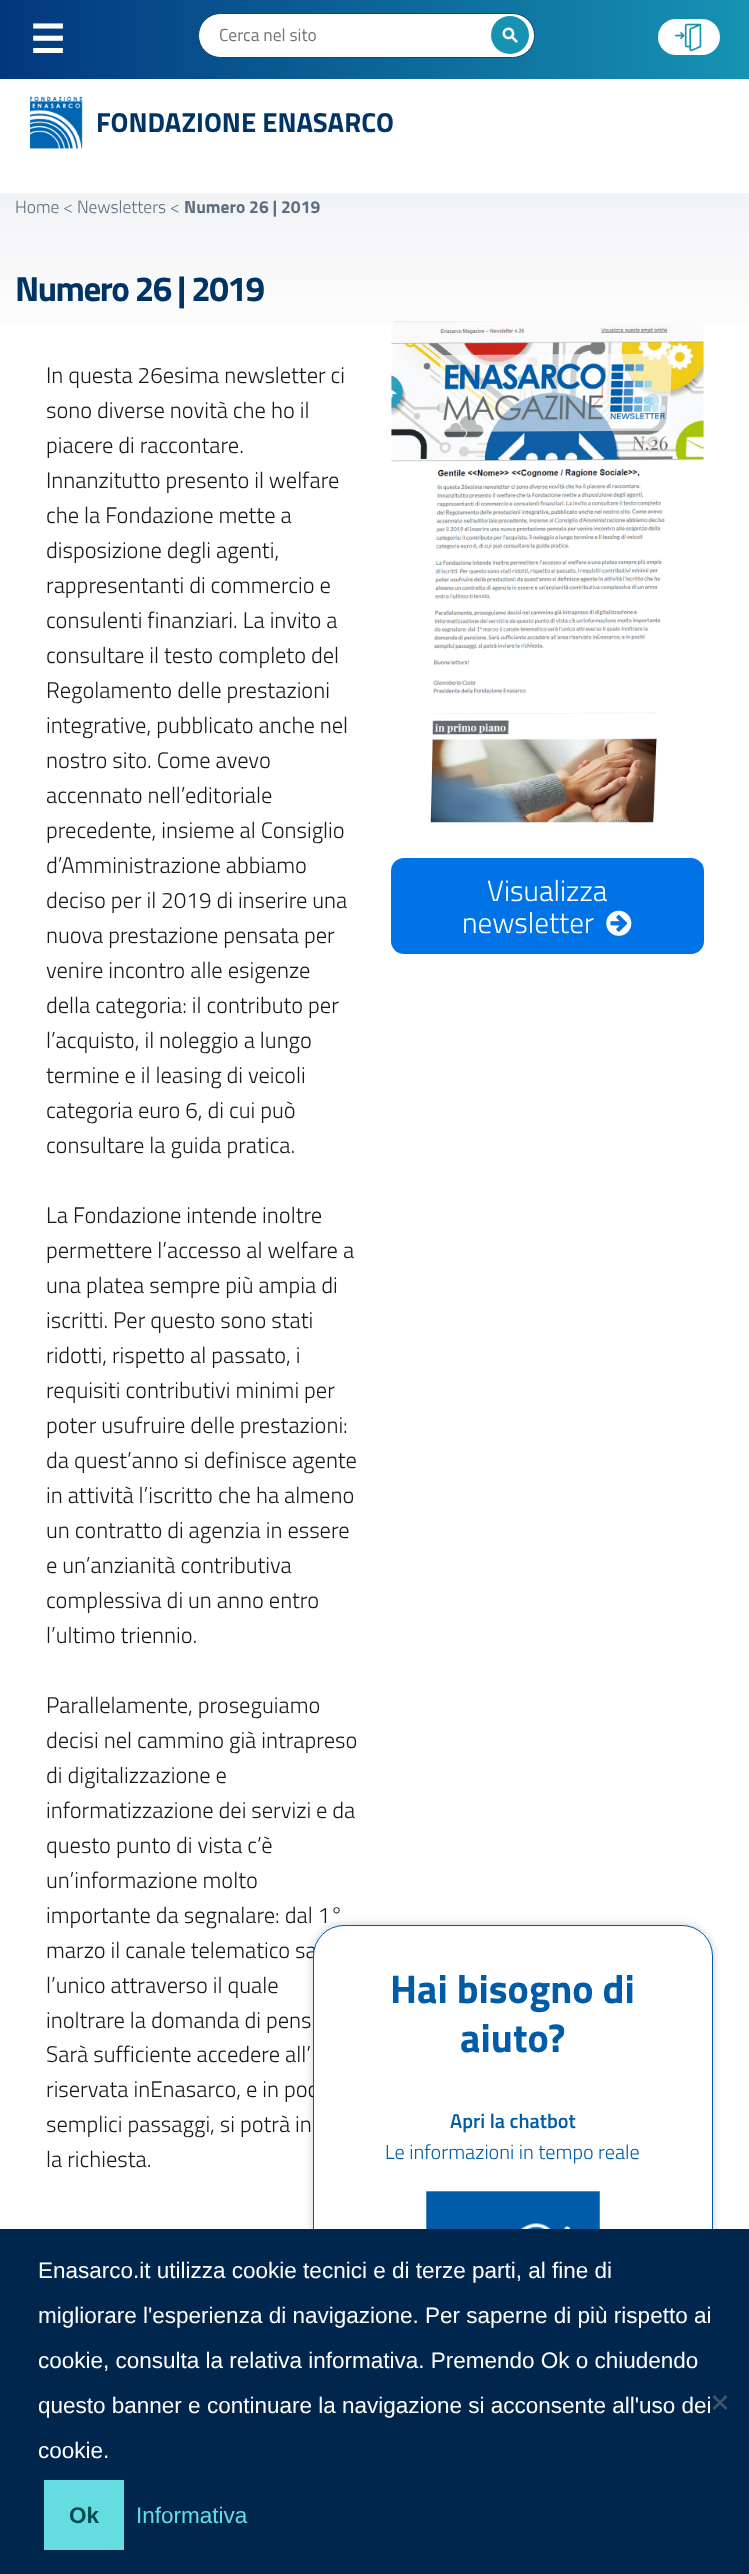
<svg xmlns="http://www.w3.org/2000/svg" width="749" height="2574">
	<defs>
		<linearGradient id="g1" gradientUnits="userSpaceOnUse" x1="0" y1="39" x2="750" y2="39"><stop offset="0" stop-color="#02377D" /><stop offset="1" stop-color="#1693B3" /></linearGradient>
		<linearGradient id="g2" gradientUnits="userSpaceOnUse" x1="375" y1="193" x2="375" y2="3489"><stop offset="0" stop-color="#F2F3F5" /><stop offset="0.05" stop-color="#FFFFFF" /></linearGradient>
	</defs>
	<rect width="100%" height="100%" fill="#FFFFFF" />
	<rect x="0" y="0" width="749" height="79" fill="url(#g1)" />
	<text x="30" y="53" font-family="DejaVu Sans" font-size="39" font-weight="700" fill="#FFFFFF">☰</text>
	<rect x="198.5" y="13.5" width="336" height="44" rx="22" fill="#FFFFFF" stroke="#134372" />
	<text x="219" y="41" font-family="Titillium Web" font-size="17.5" fill="#757575">Cerca nel sito</text>
	<circle cx="510" cy="35" r="19" fill="#1693B3" />
	<image x="502" y="27" width="16" height="16" href="assets/img1.png" />
	<rect x="658" y="19" width="62" height="36" rx="18" fill="#FFFFFF" />
	<image x="675" y="23" width="27" height="29" href="assets/img2.png" />
	<image x="30" y="96" width="53" height="53" href="assets/img3.png" />
	<text x="96" y="132" font-family="Titillium Web" font-size="27.5" font-weight="700" fill="#003366">FONDAZIONE ENASARCO</text>
	<rect x="0" y="193" width="749" height="133" fill="url(#g2)" />
	<text x="15" y="213" font-family="Titillium Web" font-size="17.5" font-weight="300" fill="#5C6F82">Home &lt; Newsletters &lt;</text>
	<text x="184" y="213" font-family="Titillium Web" font-size="17.5" font-weight="700" fill="#5C6F82">Numero 26 | 2019</text>
	<text x="15" y="301" font-family="Titillium Web" font-size="35" font-weight="700" letter-spacing="-1.5" fill="#003366">Numero 26 | 2019</text>
	<g font-family="Titillium Web" font-size="22.5" font-weight="300" fill="#19191A">
		<text x="46" y="383">In questa 26esima newsletter ci</text>
		<text x="46" y="418">sono diverse novità che ho il</text>
		<text x="46" y="453">piacere di raccontare.</text>
		<text x="46" y="488">Innanzitutto presento il welfare</text>
		<text x="46" y="523">che la Fondazione mette a</text>
		<text x="46" y="558">disposizione degli agenti,</text>
		<text x="46" y="593">rappresentanti di commercio e</text>
		<text x="46" y="628">consulenti finanziari. La invito a</text>
		<text x="46" y="663">consultare il testo completo del</text>
		<text x="46" y="698">Regolamento delle prestazioni</text>
		<text x="46" y="733">integrative, pubblicato anche nel</text>
		<text x="46" y="768">nostro sito. Come avevo</text>
		<text x="46" y="803">accennato nell’editoriale</text>
		<text x="46" y="838">precedente, insieme al Consiglio</text>
		<text x="46" y="873">d’Amministrazione abbiamo</text>
		<text x="46" y="908">deciso per il 2019 di inserire una</text>
		<text x="46" y="943">nuova prestazione pensata per</text>
		<text x="46" y="978">venire incontro alle esigenze</text>
		<text x="46" y="1013">della categoria: il contributo per</text>
		<text x="46" y="1048">l’acquisto, il noleggio a lungo</text>
		<text x="46" y="1083">termine e il leasing di veicoli</text>
		<text x="46" y="1118">categoria euro 6, di cui può</text>
		<text x="46" y="1153">consultare la guida pratica.</text>
		<text x="46" y="1223">La Fondazione intende inoltre</text>
		<text x="46" y="1258">permettere l’accesso al welfare a</text>
		<text x="46" y="1293">una platea sempre più ampia di</text>
		<text x="46" y="1328">iscritti. Per questo sono stati</text>
		<text x="46" y="1363">ridotti, rispetto al passato, i</text>
		<text x="46" y="1398">requisiti contributivi minimi per</text>
		<text x="46" y="1433">poter usufruire delle prestazioni:</text>
		<text x="46" y="1468">da quest’anno si definisce agente</text>
		<text x="46" y="1503">in attività l’iscritto che ha almeno</text>
		<text x="46" y="1538">un contratto di agenzia in essere</text>
		<text x="46" y="1573">e un’anzianità contributiva</text>
		<text x="46" y="1608">complessiva di un anno entro</text>
		<text x="46" y="1643">l’ultimo triennio.</text>
		<text x="46" y="1713">Parallelamente, proseguiamo</text>
		<text x="46" y="1748">decisi nel cammino già intrapreso</text>
		<text x="46" y="1783">di digitalizzazione e</text>
		<text x="46" y="1818">informatizzazione dei servizi e da</text>
		<text x="46" y="1853">questo punto di vista c’è</text>
		<text x="46" y="1888">un’informazione molto</text>
		<text x="46" y="1923">importante da segnalare: dal 1°</text>
		<text x="46" y="1958">marzo il canale telematico sa</text>
		<text x="46" y="1993">l’unico attraverso il quale</text>
		<text x="46" y="2028">inoltrare la domanda di pens</text>
		<text x="46" y="2062">Sarà sufficiente accedere all’</text>
		<text x="46" y="2097">riservata inEnasarco, e in poc</text>
		<text x="46" y="2132">semplici passaggi, si potrà in</text>
		<text x="46" y="2167">la richiesta.</text>
	</g>
	<image x="391" y="321" width="313" height="502" href="assets/img4.png" />
	<rect x="391" y="858" width="313" height="96" rx="13" fill="#0073E6" />
	<g font-family="Titillium Web" font-size="29.25" font-weight="300" fill="#FFFFFF">
		<text x="487" y="901">Visualizza</text>
		<text x="462" y="933">newsletter</text>
	</g>
	<image x="606" y="910" width="26" height="26" href="assets/img5.png" />
	<rect x="313" y="1925" width="400" height="438" rx="31" fill="#000000" fill-opacity="0.2" filter="blur(4.5px)" />
	<rect x="313.5" y="1925.5" width="399" height="437" rx="30.5" fill="#FFFFFF" stroke="#005CA9" />
	<g font-family="Titillium Web" font-size="40" font-weight="700" fill="#005CA9">
		<text x="390" y="2003">Hai bisogno di</text>
		<text x="460" y="2052">aiuto?</text>
	</g>
	<text x="450" y="2128" font-family="Titillium Web" font-size="20.25" font-weight="600" fill="#005CA9">Apri la chatbot</text>
	<text x="385" y="2159" font-family="Titillium Web" font-size="20.25" font-weight="300" fill="#005CA9">Le informazioni in tempo reale</text>
	<image x="426" y="2191" width="174" height="38" href="assets/img6.png" />
	<rect x="0" y="2229" width="749" height="345" fill="#00264D" />
	<g font-family="Liberation Sans" font-size="22.5" fill="#FFFFFF">
		<text x="38" y="2278">Enasarco.it utilizza cookie tecnici e di terze parti, al fine di</text>
		<text x="38" y="2323">migliorare l'esperienza di navigazione. Per saperne di più rispetto ai</text>
		<text x="38" y="2368">cookie, consulta la relativa informativa. Premendo Ok o chiudendo</text>
		<text x="38" y="2413">questo banner e continuare la navigazione si acconsente all'uso dei</text>
		<text x="38" y="2458">cookie.</text>
	</g>
	<path d="M725.5 2395L727.5 2397L714.5 2410L712.5 2408Z" fill="#405367" />
	<path d="M712.5 2397L714.5 2395L727.5 2408L725.5 2410Z" fill="#405367" />
	<rect x="44" y="2480" width="80" height="70" fill="#65DDE0" />
	<text x="69" y="2523" font-family="Liberation Sans" font-size="22.5" font-weight="700" fill="#004A4D">Ok</text>
	<text x="136" y="2523" font-family="Liberation Sans" font-size="22.5" fill="#65DDE0">Informativa</text>
</svg>
